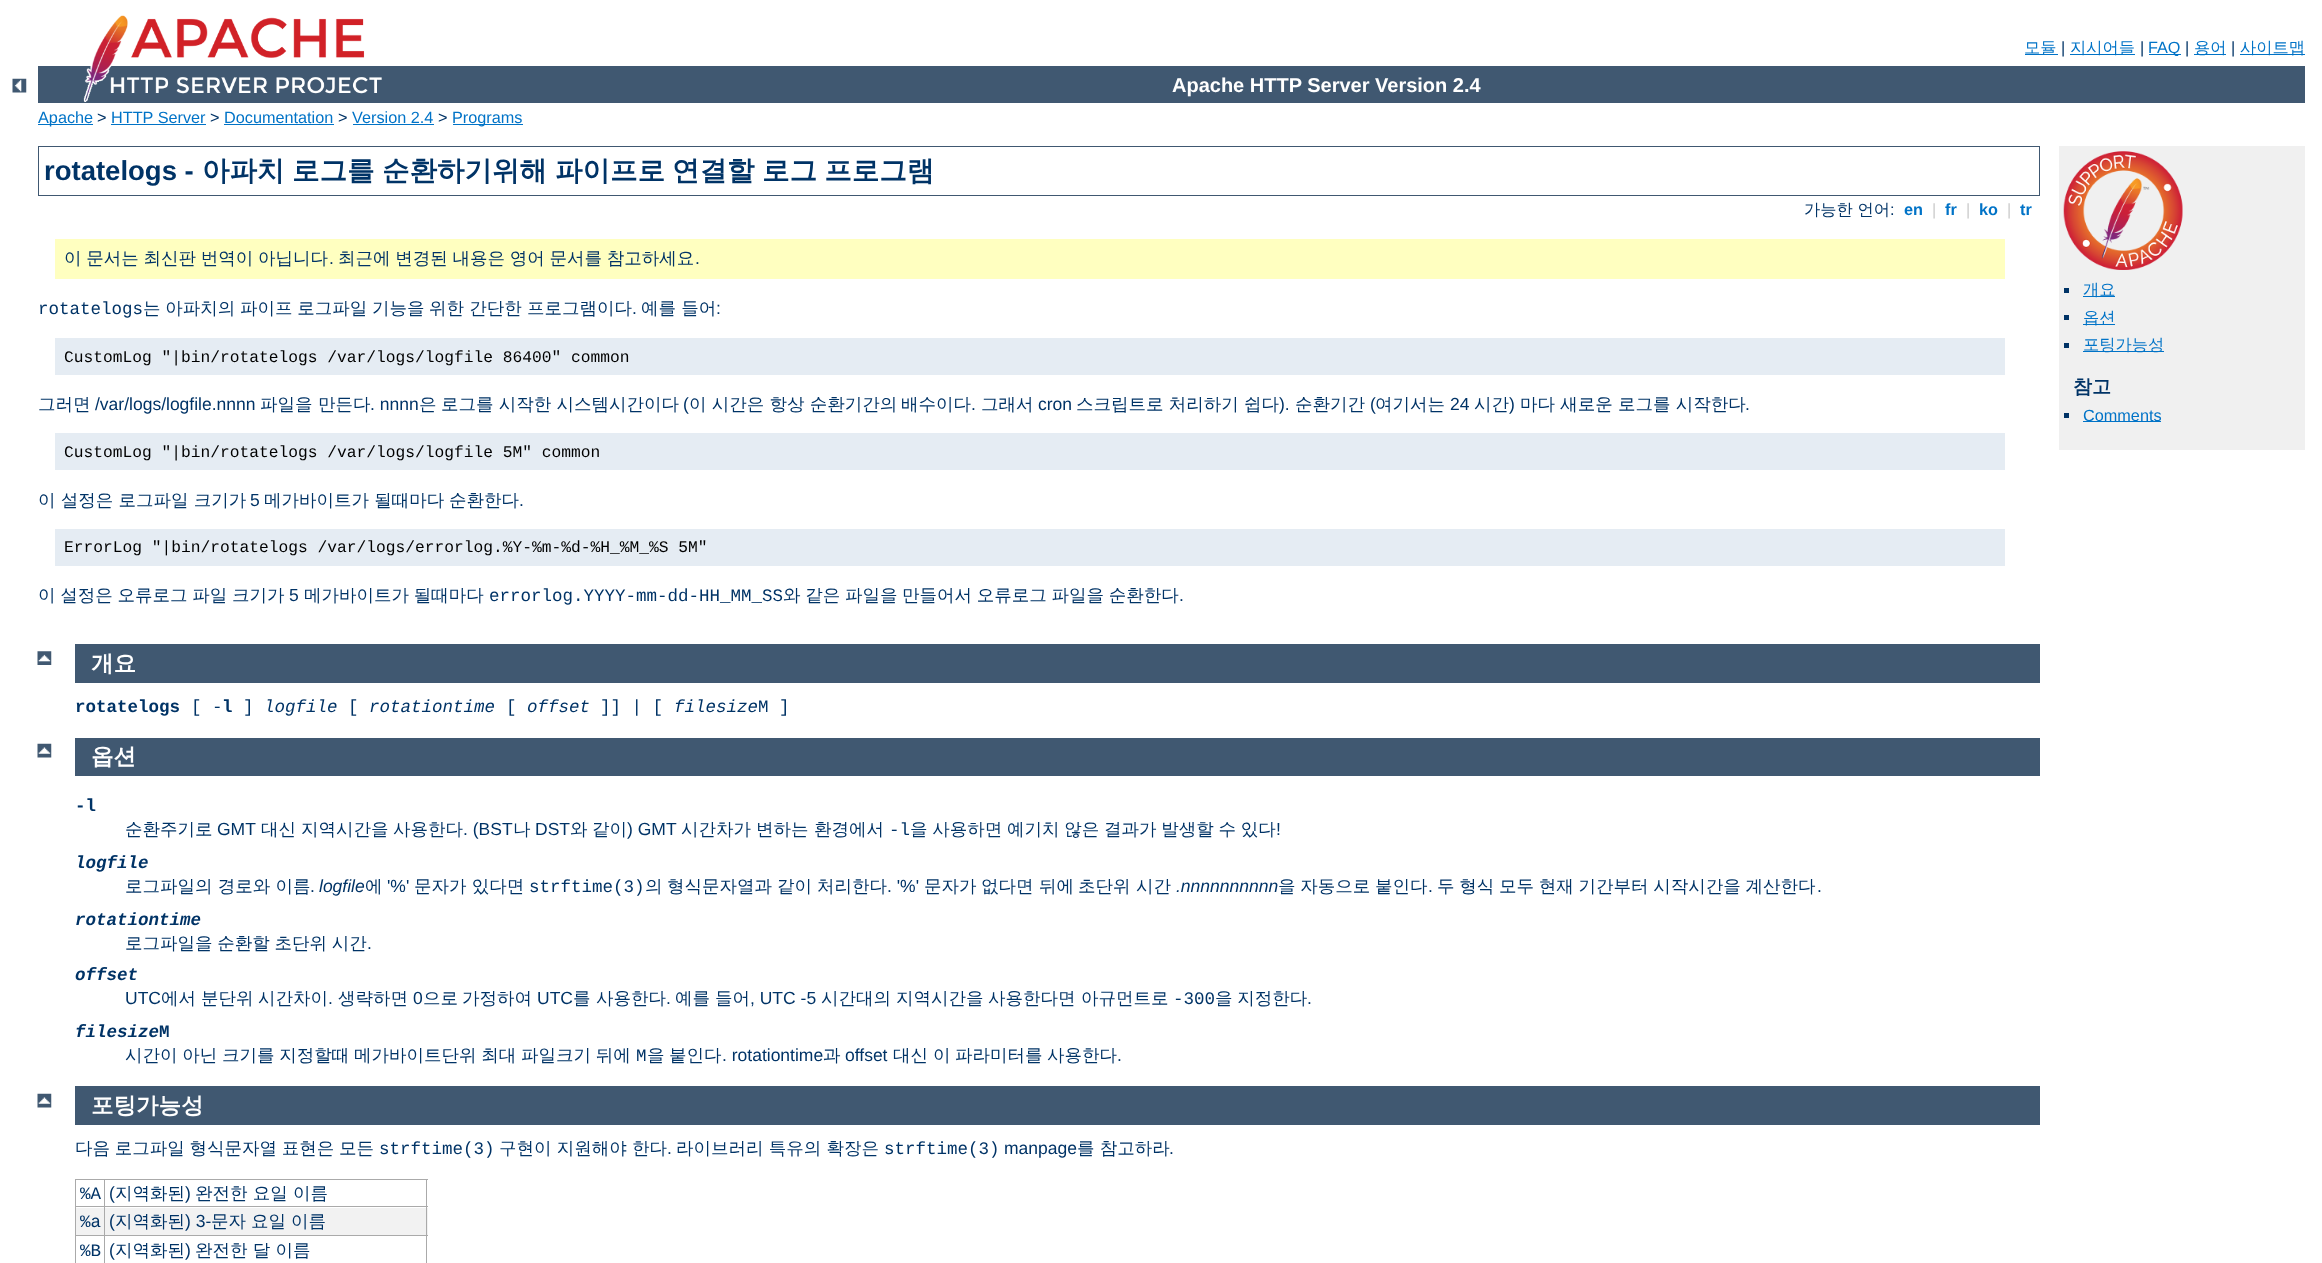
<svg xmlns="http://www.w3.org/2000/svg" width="2322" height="1263">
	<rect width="100%" height="100%" fill="#FFFFFF" />
	<image x="12" y="78" width="15" height="15" href="assets/img1.png" />
	<rect x="38" y="66" width="2267" height="37" fill="#405871" />
	<image x="83" y="15" width="299" height="87" href="assets/img2.png" />
	<rect x="2025" y="54" width="33" height="1" fill="#0073C7" />
	<text x="2024" y="53" font-family="WenQuanYi Zen Hei" font-size="16.25" font-weight="500" fill="#0073C7">모듈</text>
	<text x="2061" y="53" font-family="Liberation Sans" font-size="16.25" fill="#003366">|</text>
	<rect x="2070" y="54" width="65" height="1" fill="#0073C7" />
	<text x="2070" y="53" font-family="WenQuanYi Zen Hei" font-size="16.25" font-weight="500" fill="#0073C7">지시어들</text>
	<text x="2140" y="53" font-family="Liberation Sans" font-size="16.25" fill="#003366">|</text>
	<rect x="2149" y="54" width="32" height="1" fill="#0073C7" />
	<text x="2148" y="53" font-family="Liberation Sans" font-size="16.25" fill="#0073C7">FAQ</text>
	<text x="2185" y="53" font-family="Liberation Sans" font-size="16.25" fill="#003366">|</text>
	<rect x="2194" y="54" width="32" height="1" fill="#0073C7" />
	<text x="2194" y="53" font-family="WenQuanYi Zen Hei" font-size="16.25" font-weight="500" fill="#0073C7">용어</text>
	<text x="2231" y="53" font-family="Liberation Sans" font-size="16.25" fill="#003366">|</text>
	<rect x="2240" y="54" width="65" height="1" fill="#0073C7" />
	<text x="2240" y="53" font-family="WenQuanYi Zen Hei" font-size="16.25" font-weight="500" fill="#0073C7">사이트맵</text>
	<text x="1172" y="92" font-family="Liberation Sans" font-size="20" font-weight="700" fill="#FFFFFF">Apache HTTP Server Version 2.4</text>
	<rect x="38" y="124" width="55" height="1" fill="#0073C7" />
	<text x="38" y="123" font-family="Liberation Sans" font-size="16.25" fill="#0073C7">Apache</text>
	<text x="97" y="123" font-family="Liberation Sans" font-size="16.25" fill="#003366">&gt;</text>
	<text x="111" y="123" font-family="Liberation Sans" font-size="16.25" fill="#0073C7">HTTP Server</text>
	<rect x="111" y="124" width="95" height="1" fill="#0073C7" />
	<text x="210" y="123" font-family="Liberation Sans" font-size="16.25" fill="#003366">&gt;</text>
	<text x="224" y="123" font-family="Liberation Sans" font-size="16.25" fill="#0073C7">Documentation</text>
	<rect x="224" y="124" width="110" height="1" fill="#0073C7" />
	<text x="338" y="123" font-family="Liberation Sans" font-size="16.25" fill="#003366">&gt;</text>
	<text x="352" y="123" font-family="Liberation Sans" font-size="16.25" fill="#0073C7">Version 2.4</text>
	<rect x="353" y="124" width="81" height="1" fill="#0073C7" />
	<text x="438" y="123" font-family="Liberation Sans" font-size="16.25" fill="#003366">&gt;</text>
	<rect x="453" y="124" width="70" height="1" fill="#0073C7" />
	<text x="452" y="123" font-family="Liberation Sans" font-size="16.25" fill="#0073C7">Programs</text>
	<rect x="38.5" y="146.5" width="2001" height="49" fill="none" stroke="#405871" />
	<text x="44" y="180" font-family="Liberation Sans" font-size="27.5" font-weight="700" fill="#003366">rotatelogs -</text>
	<g font-family="WenQuanYi Zen Hei" font-size="27.5" font-weight="700" fill="#003366">
		<text x="202" y="180">아파치</text>
		<text x="292" y="180">로그를</text>
		<text x="382" y="180">순환하기위해</text>
		<text x="555" y="180">파이프로</text>
		<text x="672" y="180">연결할</text>
		<text x="762" y="180" word-spacing="-1">로그 프로그램</text>
	</g>
	<text x="1804" y="215" font-family="WenQuanYi Zen Hei" font-size="16.25" font-weight="500" fill="#003366">가능한 언어</text>
	<text x="1890" y="215" font-family="Liberation Sans" font-size="16.25" fill="#003366">:</text>
	<text x="1904" y="215" font-family="Liberation Sans" font-size="16.25" font-weight="700" fill="#0073C7">en</text>
	<text x="1932" y="215" font-family="Liberation Sans" font-size="16.25" fill="#CCCCCC">|</text>
	<text x="1945" y="215" font-family="Liberation Sans" font-size="16.25" font-weight="700" fill="#0073C7">fr</text>
	<text x="1966" y="215" font-family="Liberation Sans" font-size="16.25" fill="#CCCCCC">|</text>
	<text x="1979" y="215" font-family="Liberation Sans" font-size="16.25" font-weight="700" fill="#0073C7">ko</text>
	<text x="2007" y="215" font-family="Liberation Sans" font-size="16.25" fill="#CCCCCC">|</text>
	<text x="2020" y="215" font-family="Liberation Sans" font-size="16.25" font-weight="700" fill="#0073C7">tr</text>
	<rect x="55" y="239" width="1950" height="40" fill="#FFFFC0" />
	<text x="64" y="264" word-spacing="-0.5" font-family="WenQuanYi Zen Hei" font-size="17.5" font-weight="500" fill="#003366">이 문서는 최신판 번역이 아닙니다</text>
	<text x="329" y="264" font-family="Liberation Sans" font-size="17.5" fill="#003366">.</text>
	<text x="338" y="264" word-spacing="-0.5" font-family="WenQuanYi Zen Hei" font-size="17.5" font-weight="500" fill="#003366">최근에 변경된 내용은 영어 문서를 참고하세요</text>
	<text x="695" y="264" font-family="Liberation Sans" font-size="17.5" fill="#003366">.</text>
	<text x="38" y="314" font-family="Liberation Mono" font-size="17.5" fill="#003366">rotatelogs</text>
	<g font-family="WenQuanYi Zen Hei" font-size="17.5" font-weight="500" fill="#003366">
		<text x="143" y="314" word-spacing="-0.5">는 아파치의 파이프 로그파일 기능을</text>
		<text x="429" y="314">위한 간단한 프로그램이다</text>
	</g>
	<text x="632" y="314" font-family="Liberation Sans" font-size="17.5" fill="#003366">.</text>
	<text x="641" y="314" font-family="WenQuanYi Zen Hei" font-size="17.5" font-weight="500" fill="#003366">예를 들어</text>
	<text x="716" y="314" font-family="Liberation Sans" font-size="17.5" fill="#003366">:</text>
	<rect x="55" y="338" width="1950" height="37" fill="#E5ECF3" />
	<text x="64" y="362" font-family="Liberation Mono" font-size="16.25" fill="#000000">CustomLog "|bin/rotatelogs /var/logs/logfile 86400" common</text>
	<text x="38" y="410" font-family="WenQuanYi Zen Hei" font-size="17.5" font-weight="500" fill="#003366">그러면</text>
	<text x="95" y="410" font-family="Liberation Sans" font-size="17.5" fill="#003366">/var/logs/logfile.nnnn</text>
	<g font-family="WenQuanYi Zen Hei" font-size="17.5" font-weight="500" fill="#003366">
		<text x="260" y="410">파일을</text>
		<text x="318" y="410">만든다</text>
	</g>
	<text x="370" y="410" font-family="Liberation Sans" font-size="17.5" fill="#003366">. nnnn</text>
	<g font-family="WenQuanYi Zen Hei" font-size="17.5" font-weight="500" fill="#003366">
		<text x="419" y="410">은</text>
		<text x="441" y="410">로그를 시작한 시스템시간이다</text>
	</g>
	<text x="683" y="410" font-family="Liberation Sans" font-size="17.5" fill="#003366">(</text>
	<g font-family="WenQuanYi Zen Hei" font-size="17.5" font-weight="500" fill="#003366">
		<text x="689" y="410">이 시간은 항상 순환기간의</text>
		<text x="901" y="410">배수이다</text>
	</g>
	<text x="971" y="410" font-family="Liberation Sans" font-size="17.5" fill="#003366">.</text>
	<text x="981" y="410" font-family="WenQuanYi Zen Hei" font-size="17.5" font-weight="500" fill="#003366">그래서</text>
	<text x="1038" y="410" font-family="Liberation Sans" font-size="17.5" fill="#003366">cron</text>
	<text x="1076" y="410" font-family="WenQuanYi Zen Hei" font-size="17.5" font-weight="500" fill="#003366">스크립트로 처리하기 쉽다</text>
	<text x="1279" y="410" font-family="Liberation Sans" font-size="17.5" fill="#003366">).</text>
	<text x="1295" y="410" font-family="WenQuanYi Zen Hei" font-size="17.5" font-weight="500" fill="#003366">순환기간</text>
	<text x="1370" y="410" font-family="Liberation Sans" font-size="17.5" fill="#003366">(</text>
	<text x="1375" y="410" font-family="WenQuanYi Zen Hei" font-size="17.5" font-weight="500" fill="#003366">여기서는</text>
	<text x="1450" y="410" font-family="Liberation Sans" font-size="17.5" fill="#003366">24</text>
	<text x="1474" y="410" font-family="WenQuanYi Zen Hei" font-size="17.5" font-weight="500" fill="#003366">시간</text>
	<text x="1509" y="410" font-family="Liberation Sans" font-size="17.5" fill="#003366">)</text>
	<text x="1520" y="410" font-family="WenQuanYi Zen Hei" font-size="17.5" font-weight="500" fill="#003366">마다 새로운 로그를 시작한다</text>
	<text x="1745" y="410" font-family="Liberation Sans" font-size="17.5" fill="#003366">.</text>
	<rect x="55" y="433" width="1950" height="37" fill="#E5ECF3" />
	<text x="64" y="457" font-family="Liberation Mono" font-size="16.25" fill="#000000">CustomLog "|bin/rotatelogs /var/logs/logfile 5M" common</text>
	<text x="38" y="506" font-family="WenQuanYi Zen Hei" font-size="17.5" font-weight="500" fill="#003366">이 설정은 로그파일 크기가</text>
	<text x="250" y="506" font-family="Liberation Sans" font-size="17.5" fill="#003366">5</text>
	<g font-family="WenQuanYi Zen Hei" font-size="17.5" font-weight="500" fill="#003366">
		<text x="264" y="506">메가바이트가 될때마다</text>
		<text x="449" y="506">순환한다</text>
	</g>
	<text x="519" y="506" font-family="Liberation Sans" font-size="17.5" fill="#003366">.</text>
	<rect x="55" y="529" width="1950" height="37" fill="#E5ECF3" />
	<text x="64" y="552" font-family="Liberation Mono" font-size="16.25" fill="#000000">ErrorLog "|bin/rotatelogs /var/logs/errorlog.%Y-%m-%d-%H_%M_%S 5M"</text>
	<text x="38" y="601" word-spacing="-0.5" font-family="WenQuanYi Zen Hei" font-size="17.5" font-weight="500" fill="#003366">이 설정은 오류로그 파일 크기가</text>
	<text x="289" y="601" font-family="Liberation Sans" font-size="17.5" fill="#003366">5</text>
	<text x="304" y="601" word-spacing="-0.5" font-family="WenQuanYi Zen Hei" font-size="17.5" font-weight="500" fill="#003366">메가바이트가 될때마다</text>
	<text x="489" y="601" font-family="Liberation Mono" font-size="17.5" fill="#003366">errorlog.YYYY-mm-dd-HH_MM_SS</text>
	<g font-family="WenQuanYi Zen Hei" font-size="17.5" font-weight="500" fill="#003366">
		<text x="783" y="601" word-spacing="-0.5">와 같은 파일을</text>
		<text x="902" y="601" word-spacing="-0.5">만들어서 오류로그 파일을 순환한다</text>
	</g>
	<text x="1179" y="601" font-family="Liberation Sans" font-size="17.5" fill="#003366">.</text>
	<rect x="2059" y="146" width="246" height="304" fill="#F0F0F0" />
	<image x="2063" y="151" width="120" height="119" href="assets/img3.png" />
	<rect x="2064" y="288" width="5" height="5" fill="#003366" />
	<rect x="2083" y="296" width="32" height="1" fill="#0073C7" />
	<text x="2083" y="295" font-family="WenQuanYi Zen Hei" font-size="16.25" font-weight="500" fill="#0073C7">개요</text>
	<rect x="2064" y="315" width="5" height="5" fill="#003366" />
	<rect x="2083" y="324" width="32" height="1" fill="#0073C7" />
	<text x="2083" y="323" font-family="WenQuanYi Zen Hei" font-size="16.25" font-weight="500" fill="#0073C7">옵션</text>
	<rect x="2064" y="343" width="5" height="5" fill="#003366" />
	<rect x="2083" y="351" width="81" height="1" fill="#0073C7" />
	<text x="2083" y="350" font-family="WenQuanYi Zen Hei" font-size="16.25" font-weight="500" fill="#0073C7">포팅가능성</text>
	<text x="2073" y="393" font-family="WenQuanYi Zen Hei" font-size="19" font-weight="700" fill="#003366">참고</text>
	<rect x="2064" y="413" width="5" height="5" fill="#003366" />
	<rect x="2083" y="421" width="78" height="1" fill="#0073C7" />
	<text x="2083" y="421" font-family="Liberation Sans" font-size="16.25" fill="#0073C7">Comments</text>
	<image x="37" y="651" width="15" height="14" href="assets/img4.png" />
	<rect x="75" y="644" width="1965" height="39" fill="#405871" />
	<text x="91" y="671" font-family="WenQuanYi Zen Hei" font-size="22.5" font-weight="700" fill="#FFFFFF">개요</text>
	<text x="75" y="712" font-family="Liberation Mono" font-size="17.5" font-weight="700" fill="#003366">rotatelogs</text>
	<text x="191" y="712" font-family="Liberation Mono" font-size="17.5" fill="#003366">[ -</text>
	<text x="222" y="712" font-family="Liberation Mono" font-size="17.5" font-weight="700" fill="#003366">l</text>
	<text x="243" y="712" font-family="Liberation Mono" font-size="17.5" fill="#003366">]</text>
	<text x="264" y="712" font-family="Liberation Mono" font-size="17.5" font-style="italic" fill="#003366">logfile</text>
	<text x="348" y="712" font-family="Liberation Mono" font-size="17.5" fill="#003366">[</text>
	<text x="369" y="712" font-family="Liberation Mono" font-size="17.5" font-style="italic" fill="#003366">rotationtime</text>
	<text x="506" y="712" font-family="Liberation Mono" font-size="17.5" fill="#003366">[</text>
	<text x="527" y="712" font-family="Liberation Mono" font-size="17.5" font-style="italic" fill="#003366">offset</text>
	<text x="600" y="712" font-family="Liberation Mono" font-size="17.5" fill="#003366">]] | [</text>
	<text x="674" y="712" font-family="Liberation Mono" font-size="17.5" font-style="italic" fill="#003366">filesize</text>
	<text x="758" y="712" font-family="Liberation Mono" font-size="17.5" fill="#003366">M ]</text>
	<image x="37" y="743" width="15" height="15" href="assets/img5.png" />
	<rect x="75" y="738" width="1965" height="38" fill="#405871" />
	<text x="91" y="764" font-family="WenQuanYi Zen Hei" font-size="22.5" font-weight="700" fill="#FFFFFF">옵션</text>
	<text x="75" y="811" font-family="Liberation Mono" font-size="17.5" font-weight="700" fill="#003366">-l</text>
	<text x="125" y="835" font-family="WenQuanYi Zen Hei" font-size="17.5" font-weight="500" fill="#003366">순환주기로</text>
	<text x="217" y="835" font-family="Liberation Sans" font-size="17.5" fill="#003366">GMT</text>
	<g font-family="WenQuanYi Zen Hei" font-size="17.5" font-weight="500" fill="#003366">
		<text x="261" y="835">대신</text>
		<text x="301" y="835">지역시간을</text>
		<text x="393" y="835">사용한다</text>
	</g>
	<text x="463" y="835" font-family="Liberation Sans" font-size="17.5" fill="#003366">. (BST</text>
	<text x="513" y="835" font-family="WenQuanYi Zen Hei" font-size="17.5" font-weight="500" fill="#003366">나</text>
	<text x="535" y="835" font-family="Liberation Sans" font-size="17.5" fill="#003366">DST</text>
	<g font-family="WenQuanYi Zen Hei" font-size="17.5" font-weight="500" fill="#003366">
		<text x="570" y="835">와</text>
		<text x="592" y="835">같이</text>
	</g>
	<text x="627" y="835" font-family="Liberation Sans" font-size="17.5" fill="#003366">) GMT</text>
	<g font-family="WenQuanYi Zen Hei" font-size="17.5" font-weight="500" fill="#003366">
		<text x="681" y="835">시간차가</text>
		<text x="756" y="835">변하는</text>
		<text x="814" y="835">환경에서</text>
	</g>
	<text x="889" y="835" font-family="Liberation Mono" font-size="17.5" fill="#003366">-l</text>
	<text x="910" y="835" word-spacing="-0.5" font-family="WenQuanYi Zen Hei" font-size="17.5" font-weight="500" fill="#003366">을 사용하면 예기치 않은 결과가 발생할 수 있다</text>
	<text x="1276" y="835" font-family="Liberation Sans" font-size="17.5" fill="#003366">!</text>
	<text x="75" y="868" font-family="Liberation Mono" font-size="17.5" font-weight="700" font-style="italic" fill="#003366">logfile</text>
	<text x="125" y="892" font-family="WenQuanYi Zen Hei" font-size="17.5" font-weight="500" fill="#003366">로그파일의 경로와 이름</text>
	<text x="310" y="892" font-family="Liberation Sans" font-size="17.5" fill="#003366">.</text>
	<text x="319" y="892" font-family="Liberation Sans" font-size="17.5" font-style="italic" fill="#003366">logfile</text>
	<text x="365" y="892" font-family="WenQuanYi Zen Hei" font-size="17.5" font-weight="500" fill="#003366">에</text>
	<text x="387" y="892" font-family="Liberation Sans" font-size="17.5" fill="#003366">'%'</text>
	<text x="414" y="892" font-family="WenQuanYi Zen Hei" font-size="17.5" font-weight="500" fill="#003366">문자가 있다면</text>
	<text x="529" y="892" font-family="Liberation Mono" font-size="17.5" fill="#003366">strftime(3)</text>
	<g font-family="WenQuanYi Zen Hei" font-size="17.5" font-weight="500" fill="#003366">
		<text x="645" y="892">의</text>
		<text x="667" y="892">형식문자열과</text>
		<text x="777" y="892">같이</text>
		<text x="817" y="892">처리한다</text>
	</g>
	<text x="887" y="892" font-family="Liberation Sans" font-size="17.5" fill="#003366">. '%'</text>
	<g font-family="WenQuanYi Zen Hei" font-size="17.5" font-weight="500" fill="#003366">
		<text x="924" y="892">문자가</text>
		<text x="981" y="892">없다면</text>
		<text x="1039" y="892">뒤에</text>
		<text x="1078" y="892">초단위</text>
		<text x="1136" y="892">시간</text>
	</g>
	<text x="1176" y="892" font-family="Liberation Sans" font-size="17.5" font-style="italic" fill="#003366">.nnnnnnnnnn</text>
	<text x="1278" y="892" word-spacing="-0.5" font-family="WenQuanYi Zen Hei" font-size="17.5" font-weight="500" fill="#003366">을 자동으로 붙인다</text>
	<text x="1428" y="892" font-family="Liberation Sans" font-size="17.5" fill="#003366">.</text>
	<text x="1437" y="892" word-spacing="-0.5" font-family="WenQuanYi Zen Hei" font-size="17.5" font-weight="500" fill="#003366">두 형식 모두 현재 기간부터 시작시간을 계산한다</text>
	<text x="1817" y="892" font-family="Liberation Sans" font-size="17.5" fill="#003366">.</text>
	<text x="75" y="925" font-family="Liberation Mono" font-size="17.5" font-weight="700" font-style="italic" fill="#003366">rotationtime</text>
	<text x="125" y="949" word-spacing="-0.5" font-family="WenQuanYi Zen Hei" font-size="17.5" font-weight="500" fill="#003366">로그파일을 순환할 초단위 시간</text>
	<text x="367" y="949" font-family="Liberation Sans" font-size="17.5" fill="#003366">.</text>
	<text x="75" y="980" font-family="Liberation Mono" font-size="17.5" font-weight="700" font-style="italic" fill="#003366">offset</text>
	<text x="125" y="1004" font-family="Liberation Sans" font-size="17.5" fill="#003366">UTC</text>
	<g font-family="WenQuanYi Zen Hei" font-size="17.5" font-weight="500" fill="#003366">
		<text x="161" y="1004">에서</text>
		<text x="201" y="1004">분단위</text>
		<text x="258" y="1004">시간차이</text>
	</g>
	<text x="328" y="1004" font-family="Liberation Sans" font-size="17.5" fill="#003366">.</text>
	<text x="338" y="1004" font-family="WenQuanYi Zen Hei" font-size="17.5" font-weight="500" fill="#003366">생략하면</text>
	<text x="413" y="1004" font-family="Liberation Sans" font-size="17.5" fill="#003366">0</text>
	<g font-family="WenQuanYi Zen Hei" font-size="17.5" font-weight="500" fill="#003366">
		<text x="423" y="1004">으로</text>
		<text x="462" y="1004">가정하여</text>
	</g>
	<text x="537" y="1004" font-family="Liberation Sans" font-size="17.5" fill="#003366">UTC</text>
	<g font-family="WenQuanYi Zen Hei" font-size="17.5" font-weight="500" fill="#003366">
		<text x="573" y="1004">를</text>
		<text x="596" y="1004">사용한다</text>
	</g>
	<text x="666" y="1004" font-family="Liberation Sans" font-size="17.5" fill="#003366">.</text>
	<g font-family="WenQuanYi Zen Hei" font-size="17.5" font-weight="500" fill="#003366">
		<text x="675" y="1004">예를</text>
		<text x="715" y="1004">들어</text>
	</g>
	<text x="750" y="1004" font-family="Liberation Sans" font-size="17.5" fill="#003366">, UTC -5</text>
	<g font-family="WenQuanYi Zen Hei" font-size="17.5" font-weight="500" fill="#003366">
		<text x="821" y="1004">시간대의</text>
		<text x="896" y="1004">지역시간을</text>
		<text x="988" y="1004">사용한다면</text>
		<text x="1081" y="1004">아규먼트로</text>
	</g>
	<text x="1173" y="1004" font-family="Liberation Mono" font-size="17.5" fill="#003366">-300</text>
	<text x="1215" y="1004" word-spacing="-0.5" font-family="WenQuanYi Zen Hei" font-size="17.5" font-weight="500" fill="#003366">을 지정한다</text>
	<text x="1307" y="1004" font-family="Liberation Sans" font-size="17.5" fill="#003366">.</text>
	<text x="75" y="1037" font-family="Liberation Mono" font-size="17.5" font-weight="700" font-style="italic" fill="#003366">filesize</text>
	<text x="159" y="1037" font-family="Liberation Mono" font-size="17.5" font-weight="700" fill="#003366">M</text>
	<text x="125" y="1061" word-spacing="-0.5" font-family="WenQuanYi Zen Hei" font-size="17.5" font-weight="500" fill="#003366">시간이 아닌 크기를 지정할때 메가바이트단위 최대 파일크기 뒤에</text>
	<text x="636" y="1061" font-family="Liberation Mono" font-size="17.5" fill="#003366">M</text>
	<g font-family="WenQuanYi Zen Hei" font-size="17.5" font-weight="500" fill="#003366">
		<text x="647" y="1061">을</text>
		<text x="669" y="1061">붙인다</text>
	</g>
	<text x="722" y="1061" font-family="Liberation Sans" font-size="17.5" fill="#003366">. rotationtime</text>
	<text x="823" y="1061" font-family="WenQuanYi Zen Hei" font-size="17.5" font-weight="500" fill="#003366">과</text>
	<text x="845" y="1061" font-family="Liberation Sans" font-size="17.5" fill="#003366">offset</text>
	<g font-family="WenQuanYi Zen Hei" font-size="17.5" font-weight="500" fill="#003366">
		<text x="893" y="1061">대신</text>
		<text x="933" y="1061">이</text>
		<text x="955" y="1061">파라미터를</text>
		<text x="1047" y="1061">사용한다</text>
	</g>
	<text x="1117" y="1061" font-family="Liberation Sans" font-size="17.5" fill="#003366">.</text>
	<image x="37" y="1093" width="15" height="15" href="assets/img5.png" />
	<rect x="75" y="1086" width="1965" height="39" fill="#405871" />
	<text x="91" y="1113" font-family="WenQuanYi Zen Hei" font-size="22.5" font-weight="700" fill="#FFFFFF">포팅가능성</text>
	<text x="75" y="1154" word-spacing="-0.5" font-family="WenQuanYi Zen Hei" font-size="17.5" font-weight="500" fill="#003366">다음 로그파일 형식문자열 표현은 모든</text>
	<text x="379" y="1154" font-family="Liberation Mono" font-size="17.5" fill="#003366">strftime(3)</text>
	<text x="499" y="1154" font-family="WenQuanYi Zen Hei" font-size="17.5" font-weight="500" fill="#003366">구현이 지원해야 한다</text>
	<text x="667" y="1154" font-family="Liberation Sans" font-size="17.5" fill="#003366">.</text>
	<text x="676" y="1154" font-family="WenQuanYi Zen Hei" font-size="17.5" font-weight="500" fill="#003366">라이브러리 특유의 확장은</text>
	<text x="884" y="1154" font-family="Liberation Mono" font-size="17.5" fill="#003366">strftime(3)</text>
	<text x="1004" y="1154" font-family="Liberation Sans" font-size="17.5" fill="#003366">manpage</text>
	<text x="1077" y="1154" font-family="WenQuanYi Zen Hei" font-size="17.5" font-weight="500" fill="#003366">를 참고하라</text>
	<text x="1169" y="1154" font-family="Liberation Sans" font-size="17.5" fill="#003366">.</text>
	<rect x="75" y="1179" width="353" height="1" fill="#AAAAAA" />
	<rect x="76" y="1208" width="352" height="27" fill="#F2F2F2" />
	<rect x="426" y="1179" width="1" height="84" fill="#AAAAAA" />
	<rect x="75" y="1179" width="1" height="84" fill="#AAAAAA" />
	<text x="80" y="1199" font-family="Liberation Mono" font-size="17.5" fill="#003366">%A</text>
	<rect x="104" y="1206" width="324" height="1" fill="#AAAAAA" />
	<rect x="104" y="1235" width="324" height="1" fill="#AAAAAA" />
	<rect x="104" y="1235" width="1" height="28" fill="#AAAAAA" />
	<rect x="75" y="1235" width="30" height="1" fill="#AAAAAA" />
	<rect x="104" y="1206" width="1" height="30" fill="#AAAAAA" />
	<rect x="75" y="1206" width="30" height="1" fill="#AAAAAA" />
	<rect x="104" y="1179" width="1" height="29" fill="#AAAAAA" />
	<text x="109" y="1199" font-family="Liberation Sans" font-size="17.5" fill="#003366">(</text>
	<text x="115" y="1199" font-family="WenQuanYi Zen Hei" font-size="17.5" font-weight="500" fill="#003366">지역화된</text>
	<text x="185" y="1199" font-family="Liberation Sans" font-size="17.5" fill="#003366">)</text>
	<text x="195" y="1199" font-family="WenQuanYi Zen Hei" font-size="17.5" font-weight="500" fill="#003366">완전한 요일 이름</text>
	<text x="80" y="1227" font-family="Liberation Mono" font-size="17.5" fill="#003366">%a</text>
	<text x="109" y="1227" font-family="Liberation Sans" font-size="17.5" fill="#003366">(</text>
	<text x="115" y="1227" font-family="WenQuanYi Zen Hei" font-size="17.5" font-weight="500" fill="#003366">지역화된</text>
	<text x="185" y="1227" font-family="Liberation Sans" font-size="17.5" fill="#003366">) 3-</text>
	<g font-family="WenQuanYi Zen Hei" font-size="17.5" font-weight="500" fill="#003366">
		<text x="211" y="1227">문자</text>
		<text x="251" y="1227">요일</text>
		<text x="291" y="1227">이름</text>
	</g>
	<text x="80" y="1256" font-family="Liberation Mono" font-size="17.5" fill="#003366">%B</text>
	<text x="109" y="1256" font-family="Liberation Sans" font-size="17.5" fill="#003366">(</text>
	<text x="115" y="1256" font-family="WenQuanYi Zen Hei" font-size="17.5" font-weight="500" fill="#003366">지역화된</text>
	<text x="185" y="1256" font-family="Liberation Sans" font-size="17.5" fill="#003366">)</text>
	<text x="195" y="1256" font-family="WenQuanYi Zen Hei" font-size="17.5" font-weight="500" fill="#003366">완전한 달 이름</text>
</svg>
